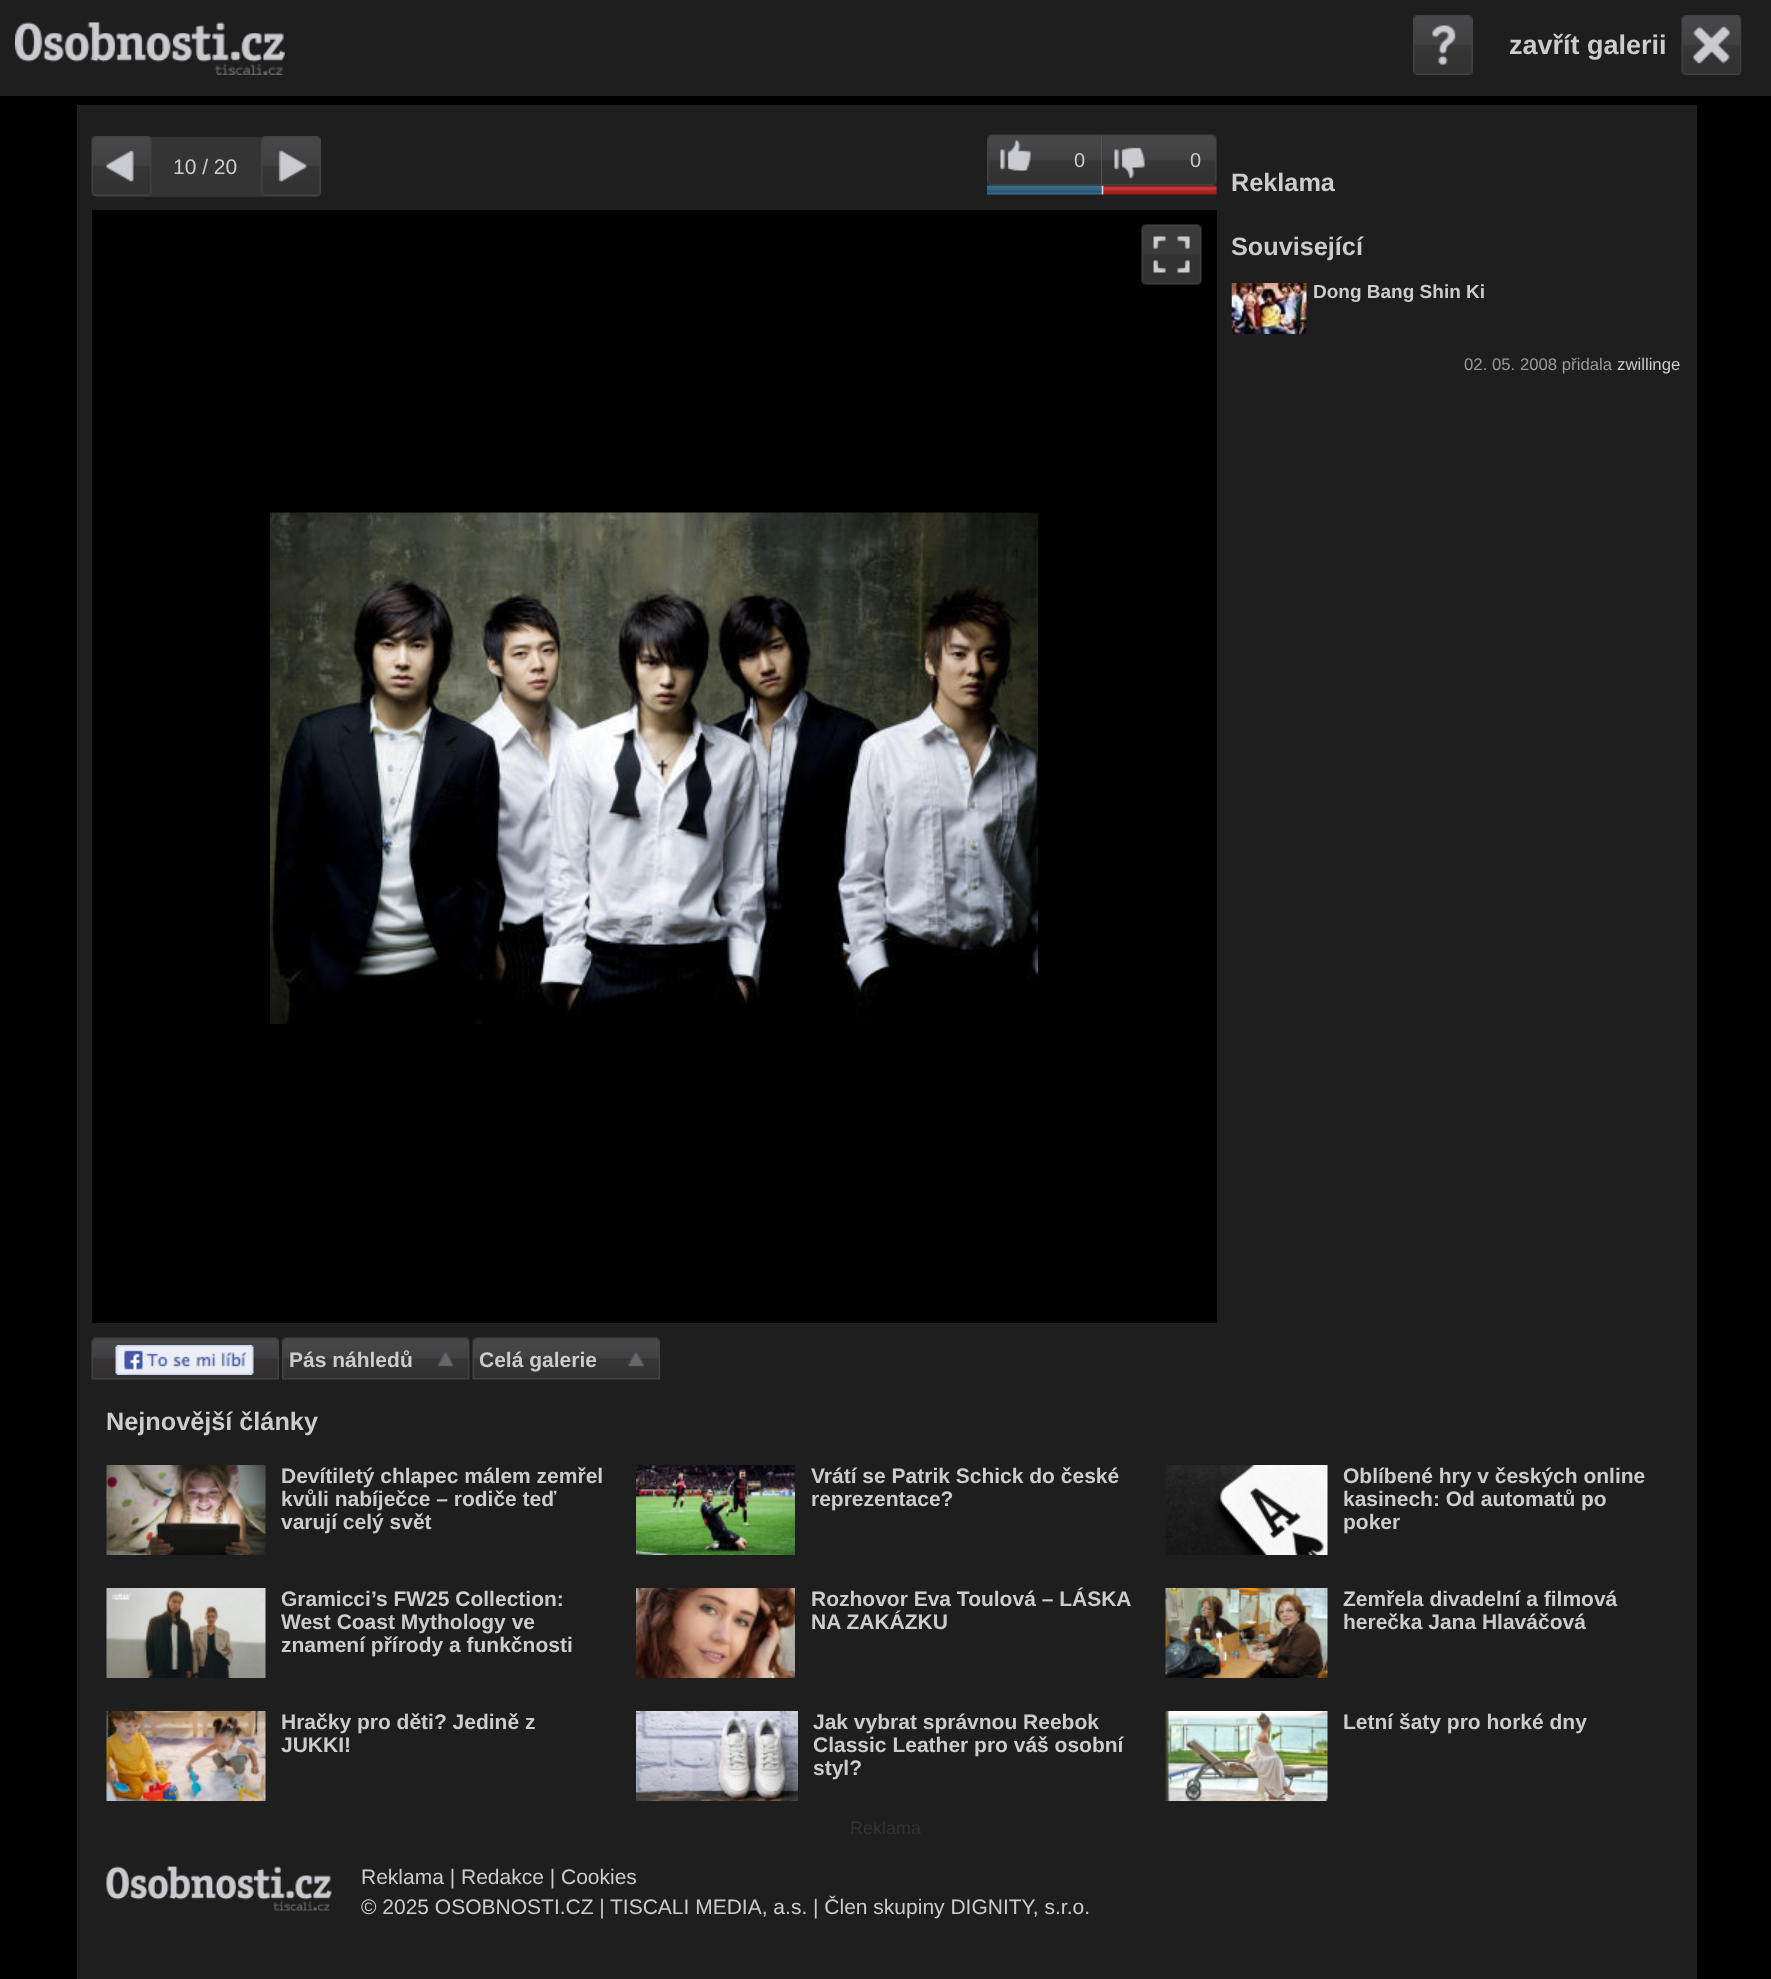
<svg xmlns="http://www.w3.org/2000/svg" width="1771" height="1979">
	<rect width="100%" height="100%" fill="#000000" />
	<rect x="0" y="0" width="1771" height="96" fill="#1F1E1E" />
	<image x="15" y="22" width="270" height="53" href="assets/img1.png" />
	<image x="1413" y="15" width="60" height="60" href="assets/img2.png" />
	<image x="1681" y="15" width="61" height="60" href="assets/img3.png" />
	<text x="1509" y="54" font-family="Liberation Sans" font-size="27" font-weight="700" fill="#CCCCCC">zavřít galerii</text>
	<rect x="77" y="105" width="1620" height="1874" fill="#1F1E1E" />
	<rect x="92" y="137" width="229" height="60" rx="5" fill="#353434" />
	<image x="91" y="136" width="61" height="60" href="assets/img4.png" />
	<text x="173" y="174" font-family="Liberation Sans" font-size="21" fill="#CCCCCC">10 / 20</text>
	<image x="261" y="136" width="60" height="60" href="assets/img5.png" />
	<image x="987" y="185" width="230" height="10" href="assets/img9.png" />
	<image x="987" y="134" width="114" height="52" href="assets/img6.png" />
	<text x="1074" y="167" font-family="Liberation Sans" font-size="20" fill="#CCCCCC">0</text>
	<image x="1101" y="134" width="2" height="52" href="assets/img7.png" />
	<image x="1102" y="134" width="115" height="52" href="assets/img8.png" />
	<text x="1190" y="167" font-family="Liberation Sans" font-size="20" fill="#CCCCCC">0</text>
	<rect x="92" y="210" width="1125" height="1113" fill="#000000" />
	<image x="1141" y="224" width="61" height="61" href="assets/img10.png" />
	<image x="270" y="512" width="768" height="512" href="assets/img11.png" />
	<image x="91" y="1337" width="188" height="43" href="assets/img12.png" />
	<image x="115" y="1345" width="139" height="30" href="assets/img13.png" />
	<image x="282" y="1337" width="188" height="43" href="assets/img14.png" />
	<text x="289" y="1367" font-family="Liberation Sans" font-size="21" font-weight="700" fill="#CCCCCC">Pás náhledů</text>
	<image x="472" y="1337" width="188" height="43" href="assets/img15.png" />
	<text x="479" y="1367" font-family="Liberation Sans" font-size="21" font-weight="700" fill="#CCCCCC">Celá galerie</text>
	<g font-family="Liberation Sans" font-size="25.25" font-weight="700" fill="#CCCCCC">
		<text x="1231" y="191">Reklama</text>
		<text x="1231" y="255">Související</text>
	</g>
	<image x="1231" y="283" width="76" height="51" href="assets/img16.png" />
	<text x="1313" y="298" font-family="Liberation Sans" font-size="19" font-weight="700" fill="#CCCCCC">Dong Bang Shin Ki</text>
	<text x="1464" y="370" font-family="Liberation Sans" font-size="16.75" fill="#999999">02. 05. 2008 přidala</text>
	<text x="1617" y="370" font-family="Liberation Sans" font-size="16.75" fill="#CCCCCC">zwillinge</text>
	<text x="106" y="1430" font-family="Liberation Sans" font-size="25.25" font-weight="700" fill="#CCCCCC">Nejnovější články</text>
	<image x="106" y="1465" width="160" height="90" href="assets/img17.png" />
	<g font-family="Liberation Sans" font-size="21" font-weight="700" fill="#CCCCCC">
		<text x="281" y="1483">Devítiletý chlapec málem zemřel</text>
		<text x="281" y="1506">kvůli nabíječce – rodiče teď</text>
		<text x="281" y="1529">varují celý svět</text>
	</g>
	<image x="106" y="1588" width="160" height="90" href="assets/img18.png" />
	<g font-family="Liberation Sans" font-size="21" font-weight="700" fill="#CCCCCC">
		<text x="281" y="1606">Gramicci’s FW25 Collection:</text>
		<text x="281" y="1629">West Coast Mythology ve</text>
		<text x="281" y="1652">znamení přírody a funkčnosti</text>
	</g>
	<image x="106" y="1711" width="160" height="90" href="assets/img19.png" />
	<g font-family="Liberation Sans" font-size="21" font-weight="700" fill="#CCCCCC">
		<text x="281" y="1729">Hračky pro děti? Jedině z</text>
		<text x="281" y="1752">JUKKI!</text>
	</g>
	<image x="636" y="1465" width="159" height="90" href="assets/img20.png" />
	<g font-family="Liberation Sans" font-size="21" font-weight="700" fill="#CCCCCC">
		<text x="811" y="1483">Vrátí se Patrik Schick do české</text>
		<text x="811" y="1506">reprezentace?</text>
	</g>
	<image x="636" y="1588" width="159" height="90" href="assets/img21.png" />
	<g font-family="Liberation Sans" font-size="21" font-weight="700" fill="#CCCCCC">
		<text x="811" y="1606">Rozhovor Eva Toulová – LÁSKA</text>
		<text x="811" y="1629">NA ZAKÁZKU</text>
	</g>
	<image x="636" y="1711" width="162" height="90" href="assets/img22.png" />
	<g font-family="Liberation Sans" font-size="21" font-weight="700" fill="#CCCCCC">
		<text x="813" y="1729">Jak vybrat správnou Reebok</text>
		<text x="813" y="1752">Classic Leather pro váš osobní</text>
		<text x="813" y="1775">styl?</text>
	</g>
	<image x="1165" y="1465" width="163" height="90" href="assets/img23.png" />
	<g font-family="Liberation Sans" font-size="21" font-weight="700" fill="#CCCCCC">
		<text x="1343" y="1483">Oblíbené hry v českých online</text>
		<text x="1343" y="1506">kasinech: Od automatů po</text>
		<text x="1343" y="1529">poker</text>
	</g>
	<image x="1165" y="1588" width="163" height="90" href="assets/img24.png" />
	<g font-family="Liberation Sans" font-size="21" font-weight="700" fill="#CCCCCC">
		<text x="1343" y="1606">Zemřela divadelní a filmová</text>
		<text x="1343" y="1629">herečka Jana Hlaváčová</text>
	</g>
	<image x="1165" y="1711" width="163" height="90" href="assets/img25.png" />
	<text x="1343" y="1729" font-family="Liberation Sans" font-size="21" font-weight="700" fill="#CCCCCC">Letní šaty pro horké dny</text>
	<text x="850" y="1834" font-family="Liberation Sans" font-size="18" fill="#323232">Reklama</text>
	<image x="106" y="1866" width="226" height="45" href="assets/img26.png" />
	<g font-family="Liberation Sans" font-size="21" fill="#CCCCCC">
		<text x="361" y="1884">Reklama | Redakce | Cookies</text>
		<text x="361" y="1914">© 2025 OSOBNOSTI.CZ |</text>
		<text x="610" y="1914">TISCALI MEDIA, a.s. | Člen skupiny DIGNITY, s.r.o.</text>
	</g>
</svg>
